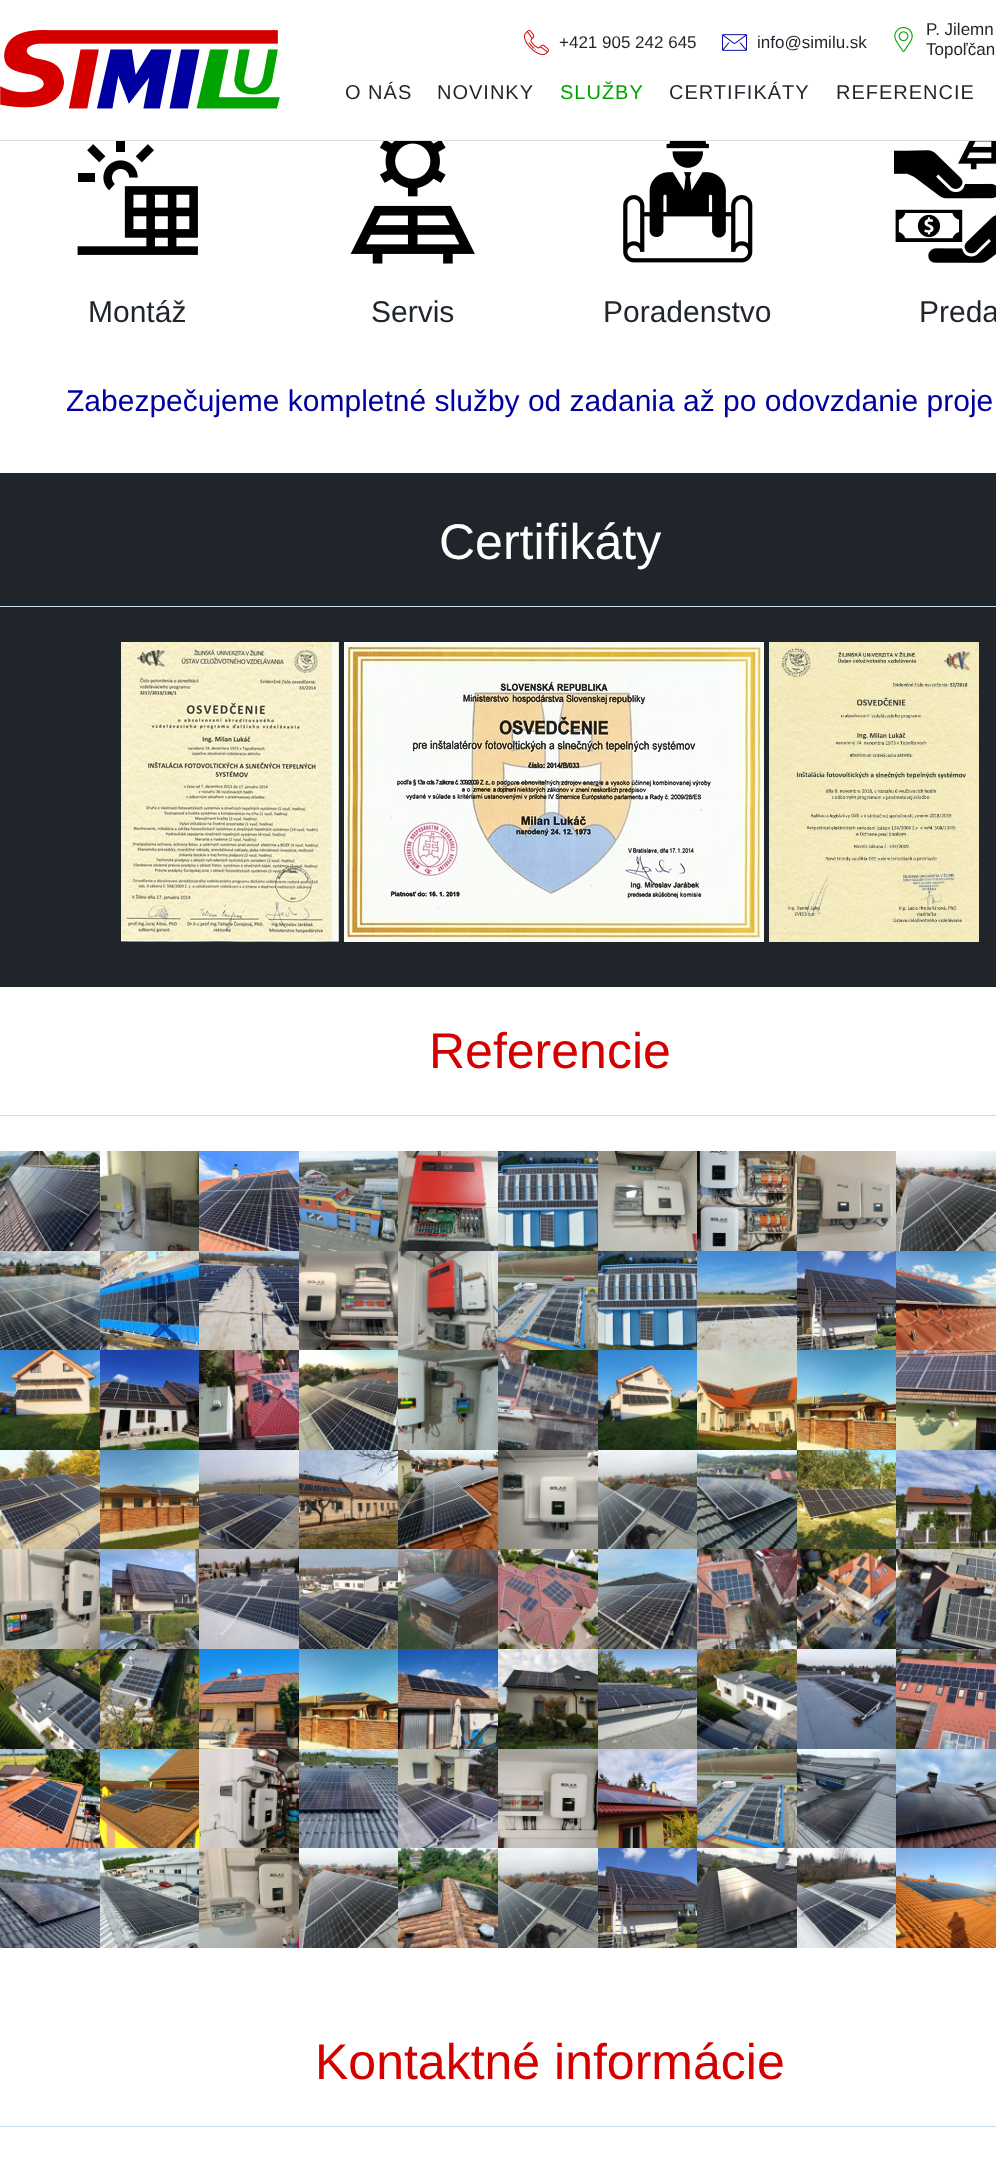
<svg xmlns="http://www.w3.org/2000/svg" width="996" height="2158">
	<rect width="100%" height="100%" fill="#FFFFFF" />
	<rect x="0" y="140" width="996" height="1" fill="#DDDDDD" />
	<image x="0" y="30" width="280" height="79" href="assets/img1.png" />
	<image x="524" y="30" width="25" height="25" href="assets/img2.png" />
	<text x="559" y="48" font-family="Liberation Sans" font-size="17" fill="#1F252B">+421 905 242 645</text>
	<image x="722" y="34" width="25" height="17" href="assets/img3.png" />
	<text x="757" y="48" font-family="Liberation Sans" font-size="17" fill="#1F252B">info@similu.sk</text>
	<image x="894" y="27" width="19" height="25" href="assets/img4.png" />
	<g font-family="Liberation Sans" font-size="17" fill="#1F252B">
		<text x="926" y="35">P. Jilemn</text>
		<text x="926" y="55">Topoľčan</text>
	</g>
	<g font-family="Liberation Sans" font-size="20" letter-spacing="1" fill="#1F252B">
		<text x="345" y="99">O NÁS</text>
		<text x="437" y="99">NOVINKY</text>
	</g>
	<text x="560" y="99" font-family="Liberation Sans" font-size="20" letter-spacing="1" fill="#00A300">SLUŽBY</text>
	<g font-family="Liberation Sans" font-size="20" letter-spacing="1" fill="#1F252B">
		<text x="669" y="99">CERTIFIKÁTY</text>
		<text x="836" y="99">REFERENCIE</text>
	</g>
	<image x="77" y="141" width="121" height="114" href="assets/img5.png" />
	<text x="88" y="322" font-family="Liberation Sans" font-size="30" fill="#1F252B">Montáž</text>
	<image x="350" y="141" width="125" height="123" href="assets/img6.png" />
	<text x="371" y="322" font-family="Liberation Sans" font-size="30" fill="#1F252B">Servis</text>
	<image x="623" y="141" width="130" height="122" href="assets/img7.png" />
	<text x="603" y="322" font-family="Liberation Sans" font-size="30" fill="#1F252B">Poradenstvo</text>
	<image x="894" y="141" width="102" height="122" href="assets/img8.png" />
	<text x="919" y="322" font-family="Liberation Sans" font-size="30" fill="#1F252B">Preda</text>
	<text x="66" y="411" font-family="Liberation Sans" font-size="30" fill="#0000A1">Zabezpečujeme kompletné služby od zadania až po odovzdanie proje</text>
	<rect x="0" y="473" width="996" height="514" fill="#1F252B" />
	<rect x="0" y="606" width="996" height="1" fill="#CDDDF0" />
	<text x="439" y="559" font-family="Liberation Sans" font-size="50" fill="#FFFFFF">Certifikáty</text>
	<image x="121" y="642" width="218" height="300" href="assets/img9.png" />
	<image x="344" y="642" width="420" height="300" href="assets/img10.png" />
	<image x="769" y="642" width="210" height="300" href="assets/img11.png" />
	<rect x="0" y="1115" width="996" height="1" fill="#CDDDF0" />
	<text x="429" y="1068" font-family="Liberation Sans" font-size="50" fill="#D40000">Referencie</text>
	<image x="0" y="1151" width="100" height="100" href="assets/img12.png" />
	<image x="100" y="1151" width="99" height="100" href="assets/img13.png" />
	<image x="199" y="1151" width="100" height="100" href="assets/img14.png" />
	<image x="299" y="1151" width="99" height="100" href="assets/img15.png" />
	<image x="398" y="1151" width="100" height="100" href="assets/img16.png" />
	<image x="498" y="1151" width="100" height="100" href="assets/img17.png" />
	<image x="598" y="1151" width="99" height="100" href="assets/img18.png" />
	<image x="697" y="1151" width="100" height="100" href="assets/img19.png" />
	<image x="797" y="1151" width="99" height="100" href="assets/img20.png" />
	<image x="896" y="1151" width="100" height="100" href="assets/img21.png" />
	<image x="0" y="1251" width="100" height="99" href="assets/img22.png" />
	<image x="100" y="1251" width="99" height="99" href="assets/img23.png" />
	<image x="199" y="1251" width="100" height="99" href="assets/img24.png" />
	<image x="299" y="1251" width="99" height="99" href="assets/img25.png" />
	<image x="398" y="1251" width="100" height="99" href="assets/img26.png" />
	<image x="498" y="1251" width="100" height="99" href="assets/img27.png" />
	<image x="598" y="1251" width="99" height="99" href="assets/img28.png" />
	<image x="697" y="1251" width="100" height="99" href="assets/img29.png" />
	<image x="797" y="1251" width="99" height="99" href="assets/img30.png" />
	<image x="896" y="1251" width="100" height="99" href="assets/img31.png" />
	<image x="0" y="1350" width="100" height="100" href="assets/img32.png" />
	<image x="100" y="1350" width="99" height="100" href="assets/img33.png" />
	<image x="199" y="1350" width="100" height="100" href="assets/img34.png" />
	<image x="299" y="1350" width="99" height="100" href="assets/img35.png" />
	<image x="398" y="1350" width="100" height="100" href="assets/img36.png" />
	<image x="498" y="1350" width="100" height="100" href="assets/img37.png" />
	<image x="598" y="1350" width="99" height="100" href="assets/img38.png" />
	<image x="697" y="1350" width="100" height="100" href="assets/img39.png" />
	<image x="797" y="1350" width="99" height="100" href="assets/img40.png" />
	<image x="896" y="1350" width="100" height="100" href="assets/img41.png" />
	<image x="0" y="1450" width="100" height="99" href="assets/img42.png" />
	<image x="100" y="1450" width="99" height="99" href="assets/img43.png" />
	<image x="199" y="1450" width="100" height="99" href="assets/img44.png" />
	<image x="299" y="1450" width="99" height="99" href="assets/img45.png" />
	<image x="398" y="1450" width="100" height="99" href="assets/img46.png" />
	<image x="498" y="1450" width="100" height="99" href="assets/img47.png" />
	<image x="598" y="1450" width="99" height="99" href="assets/img48.png" />
	<image x="697" y="1450" width="100" height="99" href="assets/img49.png" />
	<image x="797" y="1450" width="99" height="99" href="assets/img50.png" />
	<image x="896" y="1450" width="100" height="99" href="assets/img51.png" />
	<image x="0" y="1549" width="100" height="100" href="assets/img52.png" />
	<image x="100" y="1549" width="99" height="100" href="assets/img53.png" />
	<image x="199" y="1549" width="100" height="100" href="assets/img54.png" />
	<image x="299" y="1549" width="99" height="100" href="assets/img55.png" />
	<image x="398" y="1549" width="100" height="100" href="assets/img56.png" />
	<image x="498" y="1549" width="100" height="100" href="assets/img57.png" />
	<image x="598" y="1549" width="99" height="100" href="assets/img58.png" />
	<image x="697" y="1549" width="100" height="100" href="assets/img59.png" />
	<image x="797" y="1549" width="99" height="100" href="assets/img60.png" />
	<image x="896" y="1549" width="100" height="100" href="assets/img61.png" />
	<image x="0" y="1649" width="100" height="100" href="assets/img62.png" />
	<image x="100" y="1649" width="99" height="100" href="assets/img63.png" />
	<image x="199" y="1649" width="100" height="100" href="assets/img64.png" />
	<image x="299" y="1649" width="99" height="100" href="assets/img65.png" />
	<image x="398" y="1649" width="100" height="100" href="assets/img66.png" />
	<image x="498" y="1649" width="100" height="100" href="assets/img67.png" />
	<image x="598" y="1649" width="99" height="100" href="assets/img68.png" />
	<image x="697" y="1649" width="100" height="100" href="assets/img69.png" />
	<image x="797" y="1649" width="99" height="100" href="assets/img70.png" />
	<image x="896" y="1649" width="100" height="100" href="assets/img71.png" />
	<image x="0" y="1749" width="100" height="99" href="assets/img72.png" />
	<image x="100" y="1749" width="99" height="99" href="assets/img73.png" />
	<image x="199" y="1749" width="100" height="99" href="assets/img74.png" />
	<image x="299" y="1749" width="99" height="99" href="assets/img75.png" />
	<image x="398" y="1749" width="100" height="99" href="assets/img76.png" />
	<image x="498" y="1749" width="100" height="99" href="assets/img77.png" />
	<image x="598" y="1749" width="99" height="99" href="assets/img78.png" />
	<image x="697" y="1749" width="100" height="99" href="assets/img79.png" />
	<image x="797" y="1749" width="99" height="99" href="assets/img80.png" />
	<image x="896" y="1749" width="100" height="99" href="assets/img81.png" />
	<image x="0" y="1848" width="100" height="100" href="assets/img82.png" />
	<image x="100" y="1848" width="99" height="100" href="assets/img83.png" />
	<image x="199" y="1848" width="100" height="100" href="assets/img84.png" />
	<image x="299" y="1848" width="99" height="100" href="assets/img85.png" />
	<image x="398" y="1848" width="100" height="100" href="assets/img86.png" />
	<image x="498" y="1848" width="100" height="100" href="assets/img87.png" />
	<image x="598" y="1848" width="99" height="100" href="assets/img88.png" />
	<image x="697" y="1848" width="100" height="100" href="assets/img89.png" />
	<image x="797" y="1848" width="99" height="100" href="assets/img90.png" />
	<image x="896" y="1848" width="100" height="100" href="assets/img91.png" />
	<rect x="0" y="2126" width="996" height="1" fill="#CDDDF0" />
	<text x="315" y="2079" font-family="Liberation Sans" font-size="50" fill="#D40000">Kontaktné informácie</text>
</svg>
